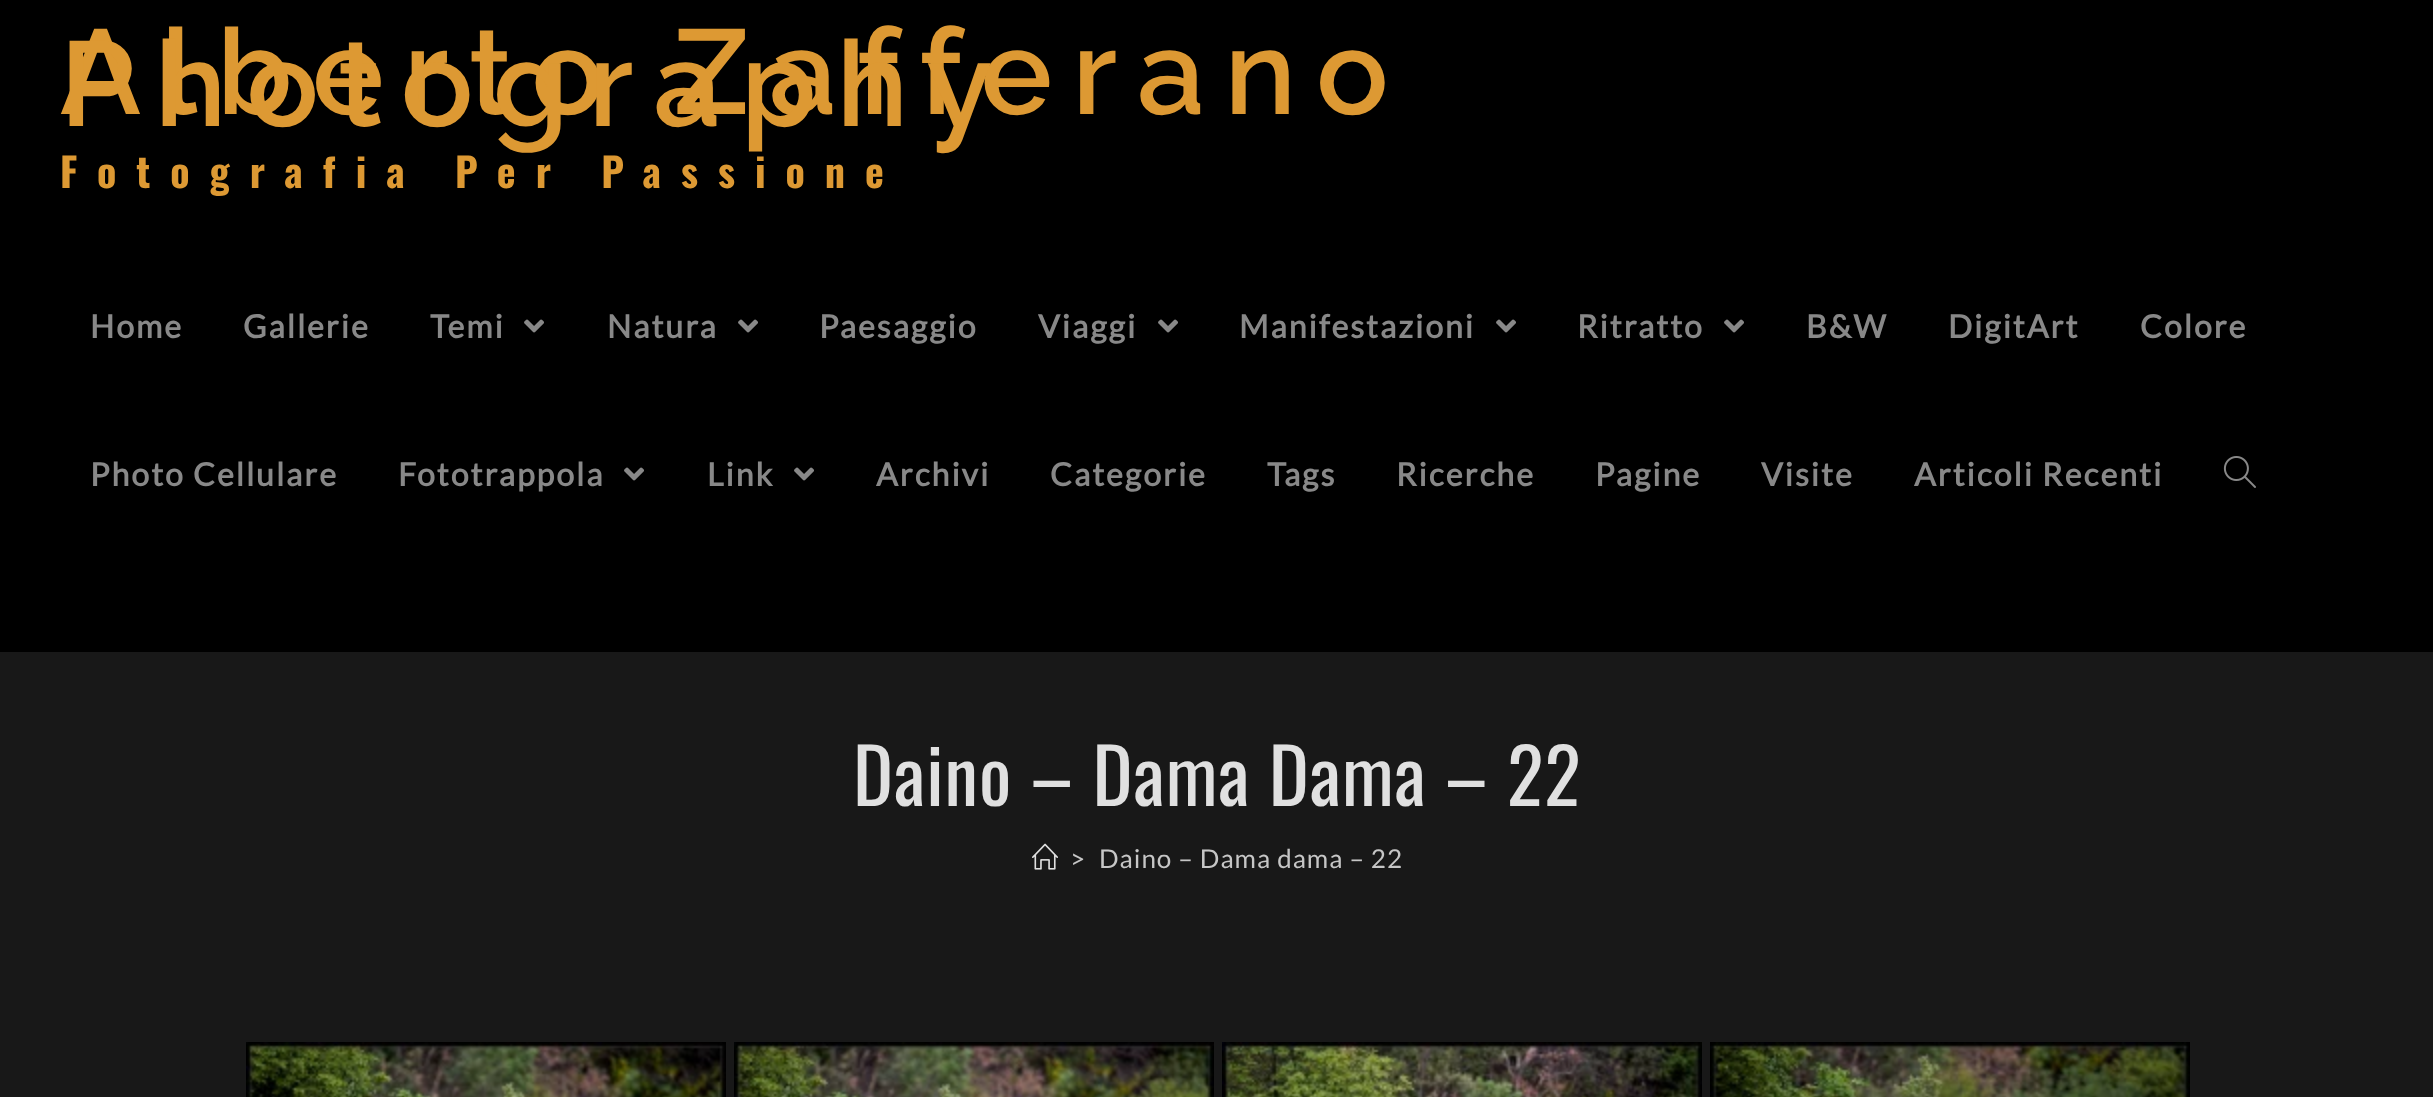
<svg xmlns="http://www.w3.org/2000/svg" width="2433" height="1097">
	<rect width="100%" height="100%" fill="#181818" />
	<rect x="0" y="0" width="2433" height="652" fill="#000000" />
	<g font-family="Raleway" font-size="120" font-weight="600" letter-spacing="20" fill="#DD9933">
		<text x="60" y="114">Alberto Zafferano</text>
		<text x="60" y="126">Photography</text>
	</g>
	<text x="60" y="188" font-family="Oswald" font-size="40" font-weight="700" letter-spacing="20" fill="#DD9933">Fotografia Per Passione</text>
	<g font-family="Lato" font-size="32" font-weight="700" letter-spacing="2" fill="#888888">
		<text x="90" y="338">Home</text>
		<text x="243" y="338">Gallerie</text>
		<text x="430" y="338">Temi</text>
	</g>
	<image x="524" y="319" width="20" height="14" href="assets/img1.png" />
	<text x="607" y="338" font-family="Lato" font-size="32" font-weight="700" letter-spacing="2" fill="#888888">Natura</text>
	<image x="738" y="319" width="20" height="14" href="assets/img1.png" />
	<g font-family="Lato" font-size="32" font-weight="700" letter-spacing="2" fill="#888888">
		<text x="819" y="338">Paesaggio</text>
		<text x="1038" y="338">Viaggi</text>
	</g>
	<image x="1158" y="319" width="20" height="14" href="assets/img1.png" />
	<text x="1239" y="338" font-family="Lato" font-size="32" font-weight="700" letter-spacing="2" fill="#888888">Manifestazioni</text>
	<image x="1496" y="319" width="20" height="14" href="assets/img1.png" />
	<text x="1577" y="338" font-family="Lato" font-size="32" font-weight="700" letter-spacing="2" fill="#888888">Ritratto</text>
	<image x="1724" y="319" width="20" height="14" href="assets/img1.png" />
	<g font-family="Lato" font-size="32" font-weight="700" letter-spacing="2" fill="#888888">
		<text x="1806" y="338">B&amp;W</text>
		<text x="1948" y="338">DigitArt</text>
		<text x="2140" y="338">Colore</text>
		<text x="90" y="486">Photo Cellulare</text>
		<text x="398" y="486">Fototrappola</text>
	</g>
	<image x="624" y="467" width="20" height="14" href="assets/img1.png" />
	<text x="707" y="486" font-family="Lato" font-size="32" font-weight="700" letter-spacing="2" fill="#888888">Link</text>
	<image x="794" y="467" width="20" height="14" href="assets/img1.png" />
	<g font-family="Lato" font-size="32" font-weight="700" letter-spacing="2" fill="#888888">
		<text x="876" y="486">Archivi</text>
		<text x="1050" y="486">Categorie</text>
		<text x="1267" y="486">Tags</text>
		<text x="1396" y="486">Ricerche</text>
		<text x="1595" y="486">Pagine</text>
		<text x="1761" y="486">Visite</text>
		<text x="1914" y="486">Articoli Recenti</text>
	</g>
	<image x="2223" y="456" width="33" height="32" href="assets/img2.png" />
	<text x="853" y="806" font-family="Oswald" font-size="76" letter-spacing="1" fill="#E0E0E0">Daino – Dama Dama – 22</text>
	<image x="1032" y="843" width="26" height="27" href="assets/img3.png" />
	<g font-family="Lato" font-size="26" letter-spacing="1" fill="#C6C6C6">
		<text x="1070" y="868">&gt;</text>
		<text x="1099" y="868">Daino – Dama dama – 22</text>
	</g>
	<image x="246" y="1042" width="480" height="55" href="assets/img4.png" />
	<image x="734" y="1042" width="480" height="55" href="assets/img5.png" />
	<image x="1222" y="1042" width="480" height="55" href="assets/img6.png" />
	<image x="1710" y="1042" width="480" height="55" href="assets/img7.png" />
</svg>
